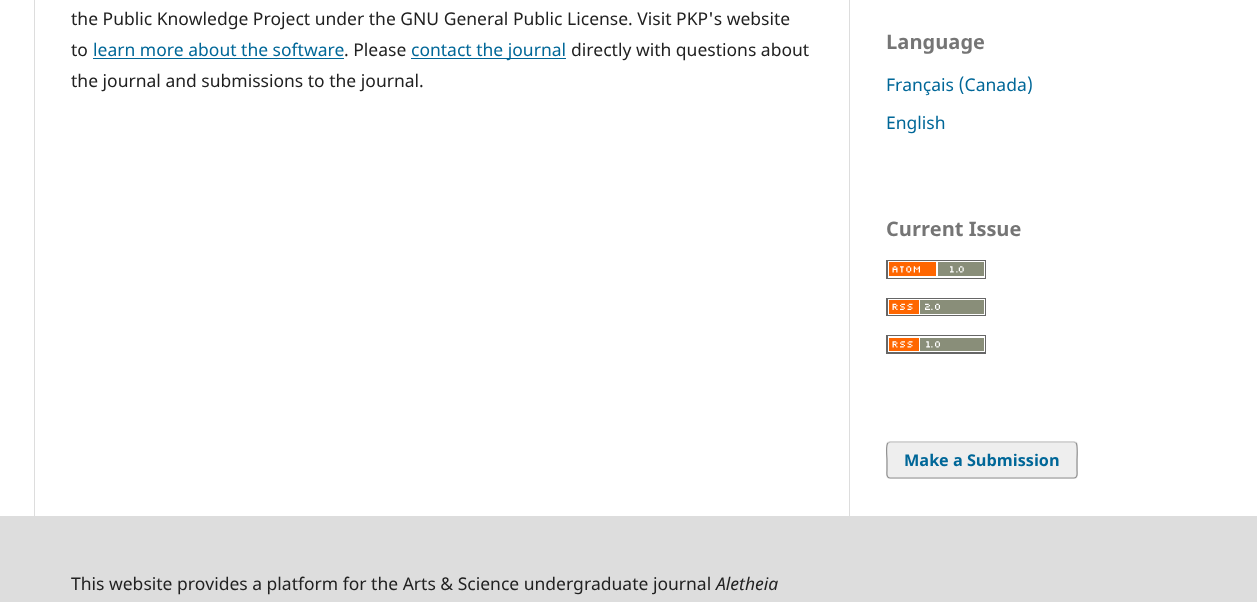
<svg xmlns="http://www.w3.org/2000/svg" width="1257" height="602">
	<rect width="100%" height="100%" fill="#FFFFFF" />
	<rect x="34" y="0" width="1" height="516" fill="#DDDDDD" />
	<g font-family="Noto Sans" font-size="17.5" fill="#212121">
		<text x="71" y="25">the Public Knowledge Project under the GNU General Public License. Visit PKP's website</text>
		<text x="71" y="56">to</text>
	</g>
	<text x="93" y="56" font-family="Noto Sans" font-size="17.5" fill="#006798">learn more about the software</text>
	<rect x="93" y="58" width="251" height="1" fill="#006798" />
	<text x="344" y="56" font-family="Noto Sans" font-size="17.5" fill="#212121">. Please</text>
	<rect x="411" y="58" width="155" height="1" fill="#006798" />
	<text x="411" y="56" font-family="Noto Sans" font-size="17.5" fill="#006798">contact the journal</text>
	<g font-family="Noto Sans" font-size="17.5" fill="#212121">
		<text x="571" y="56">directly with questions about</text>
		<text x="71" y="87">the journal and submissions to the journal.</text>
	</g>
	<rect x="849" y="0" width="1" height="516" fill="#DDDDDD" />
	<text x="886" y="49" font-family="Noto Sans" font-size="20" font-weight="700" fill="#757575">Language</text>
	<g font-family="Noto Sans" font-size="17.5" fill="#006798">
		<text x="886" y="91">Français (Canada)</text>
		<text x="886" y="129">English</text>
	</g>
	<text x="886" y="236" font-family="Noto Sans" font-size="20" font-weight="700" fill="#757575">Current Issue</text>
	<image x="886" y="260" width="100" height="19" href="assets/img1.png" />
	<image x="886" y="298" width="100" height="18" href="assets/img2.png" />
	<image x="886" y="335" width="100" height="19" href="assets/img3.png" />
	<rect x="886" y="441" width="192" height="38" rx="4" fill="#EEEEEE" />
	<path d="M888 443L890 442H1074L1076 443" fill="none" stroke="#BBBBBB" stroke-width="1.2" />
	<path d="M1076 443C1078 445 1077 457 1077 460V470C1077 472.5 1078 478 1074 478H890C886 478 887 472.5 887 470V460C887 457 885.5 445 888 443" fill="none" stroke="#8F8F8F" stroke-width="1.2" />
	<text x="904" y="466" font-family="Noto Sans" font-size="16.25" font-weight="700" fill="#006798">Make a Submission</text>
	<rect x="0" y="516" width="1257" height="86" fill="#DDDDDD" />
	<text x="71" y="590" font-family="Noto Sans" font-size="17.5" fill="#212121">This website provides a platform for the Arts &amp; Science undergraduate journal</text>
	<text x="716" y="590" font-family="Noto Sans" font-size="17.5" font-style="italic" fill="#212121">Aletheia</text>
</svg>
